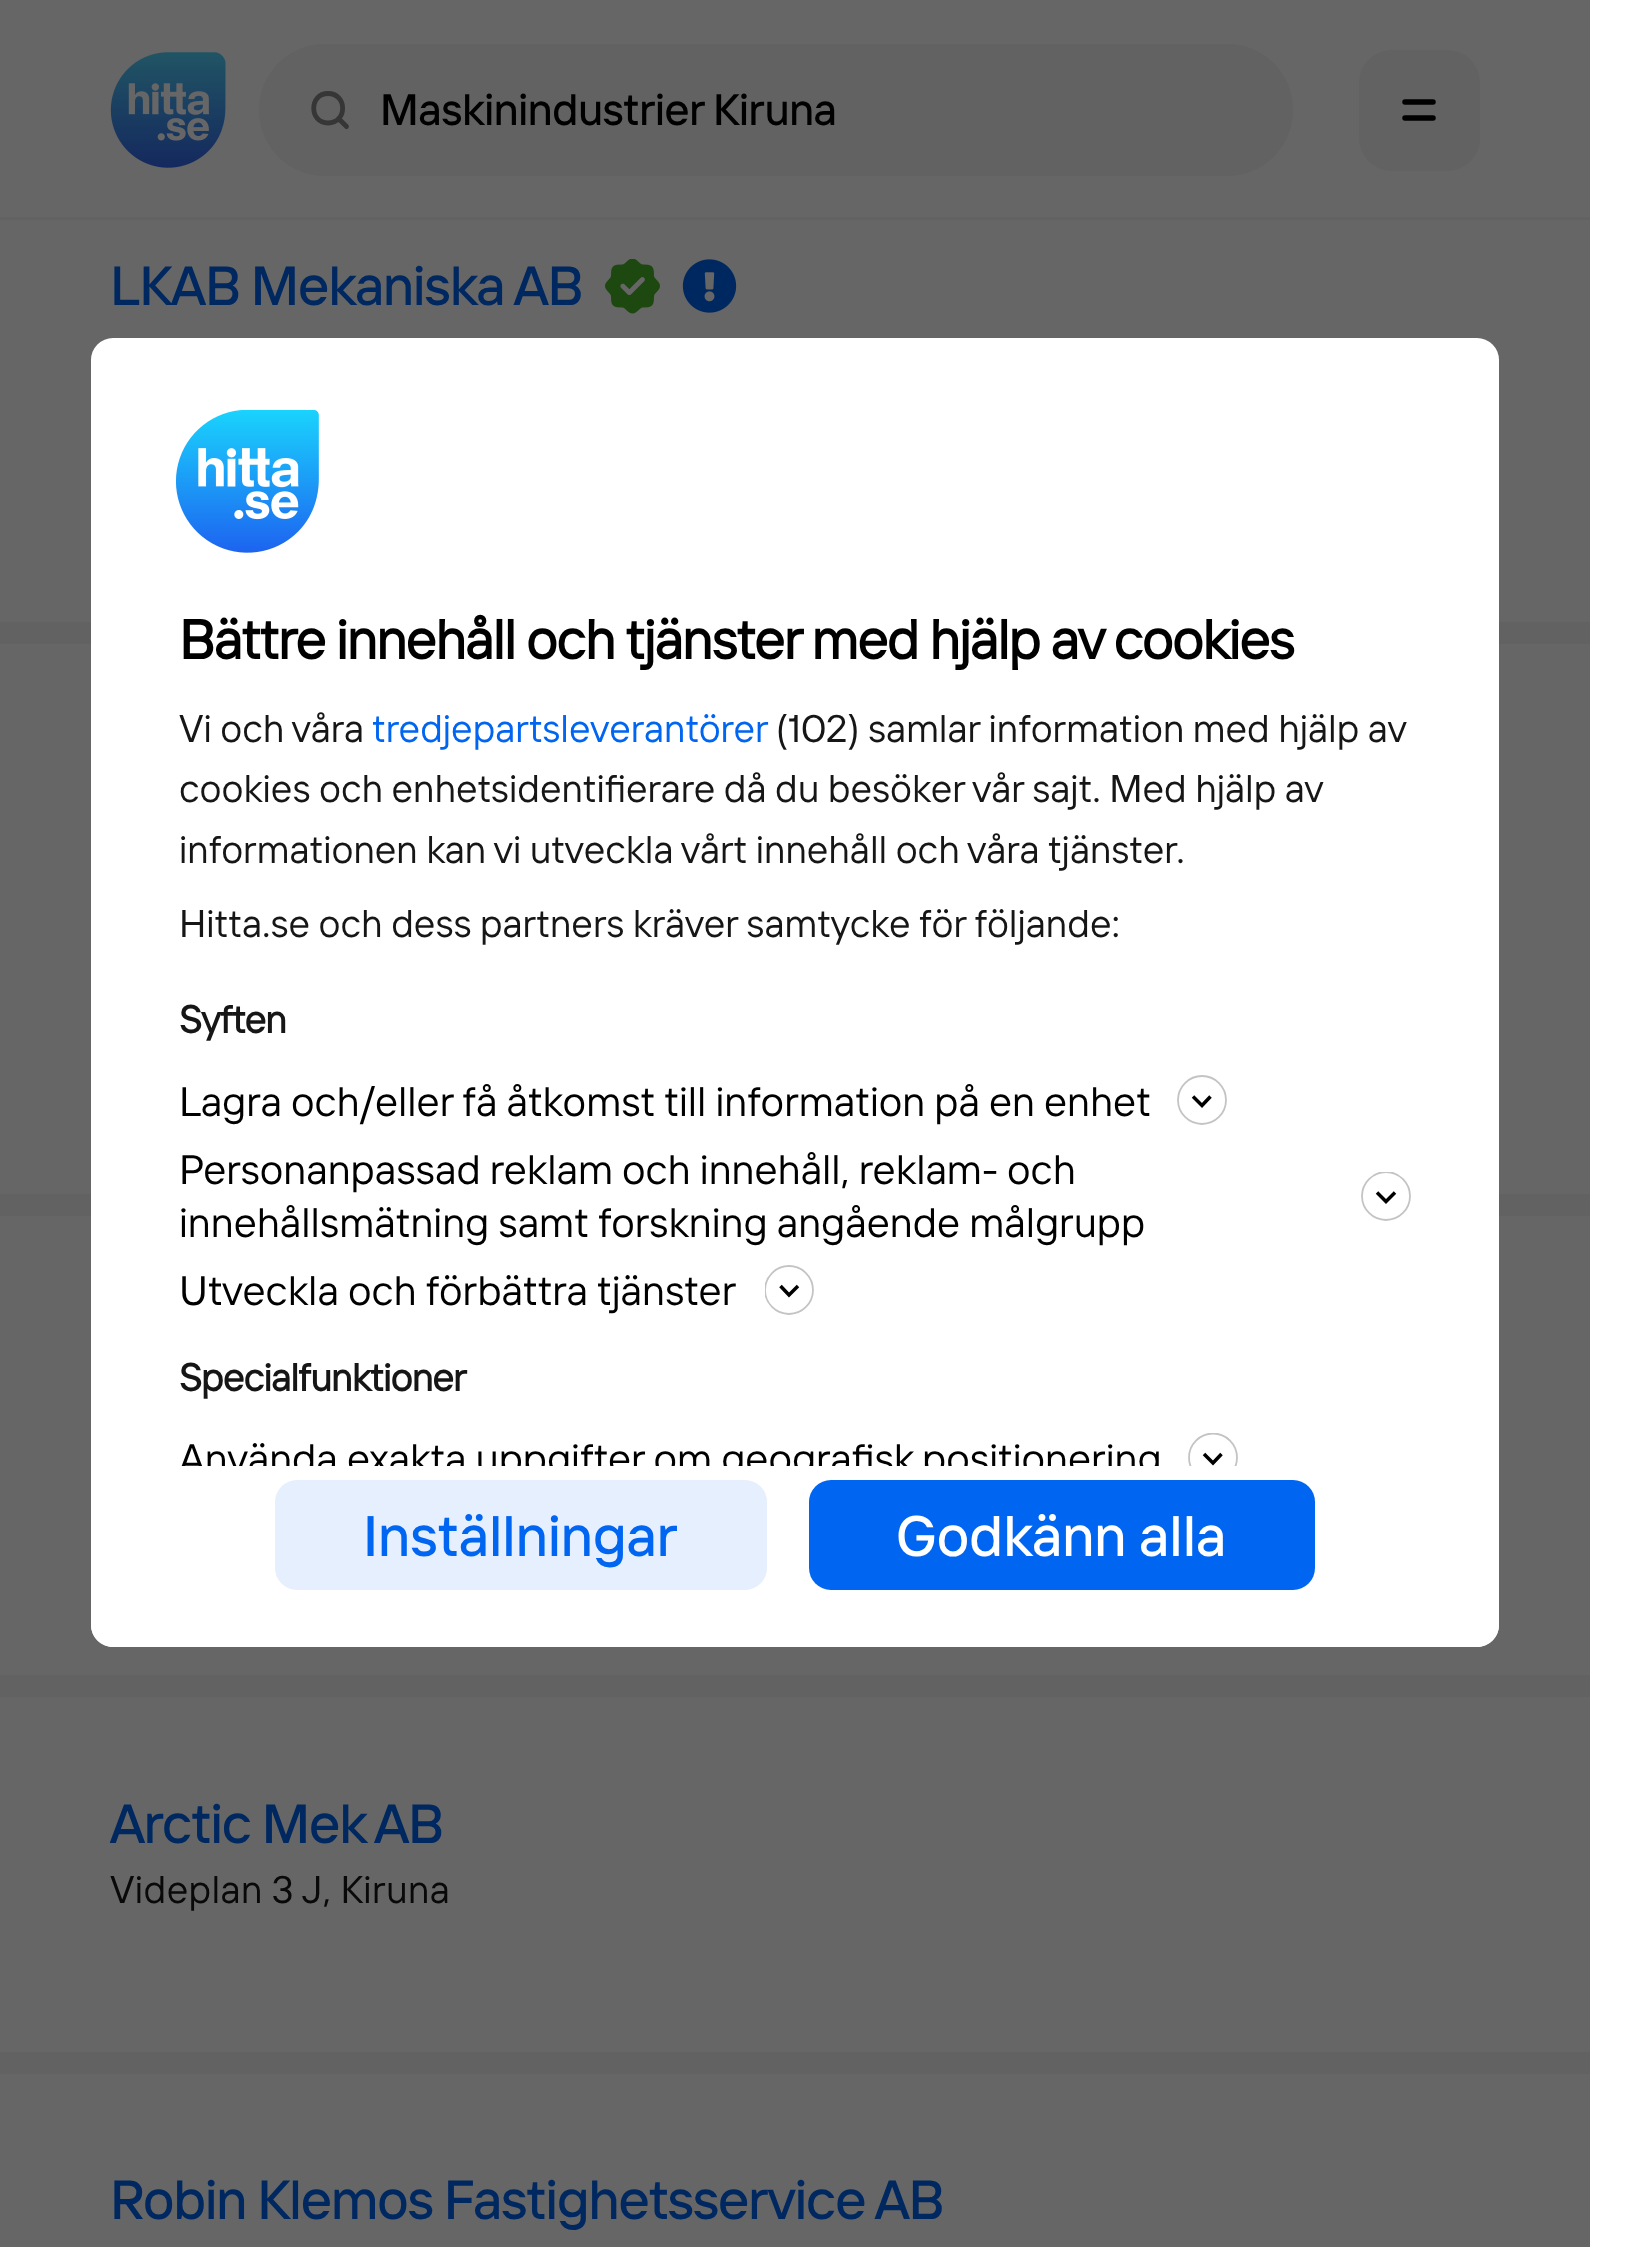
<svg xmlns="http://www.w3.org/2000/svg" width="1629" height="2247">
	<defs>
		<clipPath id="clip1"><rect x="1361" y="1172" width="50" height="49" /></clipPath>
		<clipPath id="clip2"><rect x="765" y="1265" width="49" height="50" /></clipPath>
		<clipPath id="clip3"><rect x="91" y="567" width="1408" height="899" /></clipPath>
		<clipPath id="clip4"><rect x="1188" y="1433" width="50" height="33" /></clipPath>
	</defs>
	<rect width="100%" height="100%" fill="#FFFFFF" />
	<rect x="0" y="220" width="1590" height="2027" fill="#666666" />
	<rect x="0" y="0" width="1590" height="217" fill="#666666" />
	<rect x="0" y="217" width="1590" height="3" fill="#626262" />
	<image x="110" y="52" width="116" height="116" href="assets/img1.png" />
	<rect x="259" y="44" width="1034" height="132" rx="66" fill="#626262" />
	<path d="M346.5 126.5L338.5 118.5M328 123C347.5 123 347.5 93.5 328 93.5C309 93.5 309 123 328 123Z" fill="none" stroke="#363636" stroke-width="4.8" stroke-linecap="round" stroke-linejoin="round" />
	<text x="380" y="125" font-family="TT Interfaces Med" font-size="44" font-weight="500" letter-spacing="-0.4" fill="#000000">Maskinindustrier Kiruna</text>
	<rect x="1359" y="50" width="121" height="121" rx="33" fill="#626262" />
	<path d="M1405 102H1433M1405 118H1433" fill="none" stroke="#000000" stroke-width="5.5" stroke-linecap="round" stroke-linejoin="round" />
	<rect x="0" y="622" width="1590" height="22" fill="#626262" />
	<text x="110" y="305" font-family="TT Interfaces Med" font-size="55" font-weight="500" letter-spacing="-1.1" fill="#002860">LKAB Mekaniska AB</text>
	<image x="605" y="259" width="55" height="55" href="assets/img2.png" />
	<image x="682" y="259" width="55" height="54" href="assets/img3.png" />
	<rect x="0" y="1194" width="1590" height="22" fill="#626262" />
	<rect x="0" y="1675" width="1590" height="22" fill="#626262" />
	<rect x="0" y="2052" width="1590" height="22" fill="#626262" />
	<text x="110" y="1843" font-family="TT Interfaces Med" font-size="55" font-weight="500" letter-spacing="-1.1" fill="#002860">Arctic Mek AB</text>
	<text x="110" y="1903" font-family="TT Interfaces" font-size="38.5" letter-spacing="0.4" fill="#090909">Videplan 3 J, Kiruna</text>
	<text x="110" y="2219" font-family="TT Interfaces Med" font-size="55" font-weight="500" letter-spacing="-1.1" fill="#002860">Robin Klemos Fastighetsservice AB</text>
	<rect x="91" y="338" width="1408" height="1309" rx="22" fill="#FFFFFF" />
	<image x="176" y="410" width="143" height="143" href="assets/img4.png" />
	<text x="179" y="659" font-family="TT Interfaces" font-size="55" font-weight="700" letter-spacing="-1.1" fill="#000000">Bättre innehåll och tjänster med hjälp av cookies</text>
	<text x="179" y="742" font-family="TT Interfaces" font-size="38.5" fill="#161616">Vi och våra</text>
	<text x="372" y="742" font-family="TT Interfaces" font-size="38.5" fill="#0065F1">tredjepartsleverantörer</text>
	<g font-family="TT Interfaces" font-size="38.5" fill="#161616">
		<text x="776" y="742">(102) samlar information med hjälp av</text>
		<text x="179" y="802">cookies och enhetsidentifierare då du besöker vår sajt. Med hjälp av</text>
		<text x="179" y="863">informationen kan vi utveckla vårt innehåll och våra tjänster.</text>
		<text x="179" y="937">Hitta.se och dess partners kräver samtycke för följande:</text>
	</g>
	<text x="179" y="1033" font-family="TT Interfaces" font-size="38.5" font-weight="700" letter-spacing="-0.75" fill="#161616">Syften</text>
	<text x="179" y="1116" font-family="TT Interfaces" font-size="41.25" fill="#000000">Lagra och/eller få åtkomst till information på en enhet</text>
	<path d="M1193 1096.5L1202 1105.5L1210.5 1096.5" fill="none" stroke="#000000" stroke-width="3.5" />
	<circle cx="1202" cy="1100" r="24" fill="none" stroke="#C4C4C4" stroke-width="1.8" />
	<text x="179" y="1184" font-family="TT Interfaces" font-size="41.25" fill="#000000">Personanpassad reklam och innehåll, reklam- och</text>
	<path d="M1377 1192.5L1386 1201.5L1395 1192.5" fill="none" stroke="#000000" stroke-width="3.5" />
	<g clip-path="url(#clip1)">
		<circle cx="1386" cy="1196" r="24" fill="none" stroke="#C4C4C4" stroke-width="1.8" />
	</g>
	<g font-family="TT Interfaces" font-size="41.25" fill="#000000">
		<text x="179" y="1237">innehållsmätning samt forskning angående målgrupp</text>
		<text x="179" y="1305">Utveckla och förbättra tjänster</text>
	</g>
	<path d="M780.5 1286L789 1295L798 1286" fill="none" stroke="#000000" stroke-width="3.5" />
	<g clip-path="url(#clip2)">
		<circle cx="789" cy="1290" r="24" fill="none" stroke="#C4C4C4" stroke-width="1.8" />
	</g>
	<text x="179" y="1391" font-family="TT Interfaces" font-size="38.5" font-weight="700" letter-spacing="-0.75" fill="#161616">Specialfunktioner</text>
	<g clip-path="url(#clip3)">
		<text x="179" y="1473" font-family="TT Interfaces" font-size="41.25" fill="#000000">Använda exakta uppgifter om geografisk positionering</text>
	</g>
	<path d="M1204 1454L1213 1463L1221.5 1454" fill="none" stroke="#000000" stroke-width="3.5" />
	<g clip-path="url(#clip4)">
		<circle cx="1213" cy="1457.5" r="24" fill="none" stroke="#C4C4C4" stroke-width="1.8" />
	</g>
	<path d="M91 1466H1499V1625C1499 1637 1489 1647 1477 1647H113C101 1647 91 1637 91 1625Z" fill="#FFFFFF" />
	<rect x="275" y="1480" width="492" height="110" rx="22" fill="#E6EFFD" />
	<text x="363" y="1556" font-family="TT Interfaces Med" font-size="57" font-weight="500" fill="#0065F1">Inställningar</text>
	<rect x="809" y="1480" width="506" height="110" rx="22" fill="#0065F1" />
	<text x="896" y="1556" font-family="TT Interfaces Med" font-size="57" font-weight="500" fill="#FFFFFF">Godkänn alla</text>
</svg>
